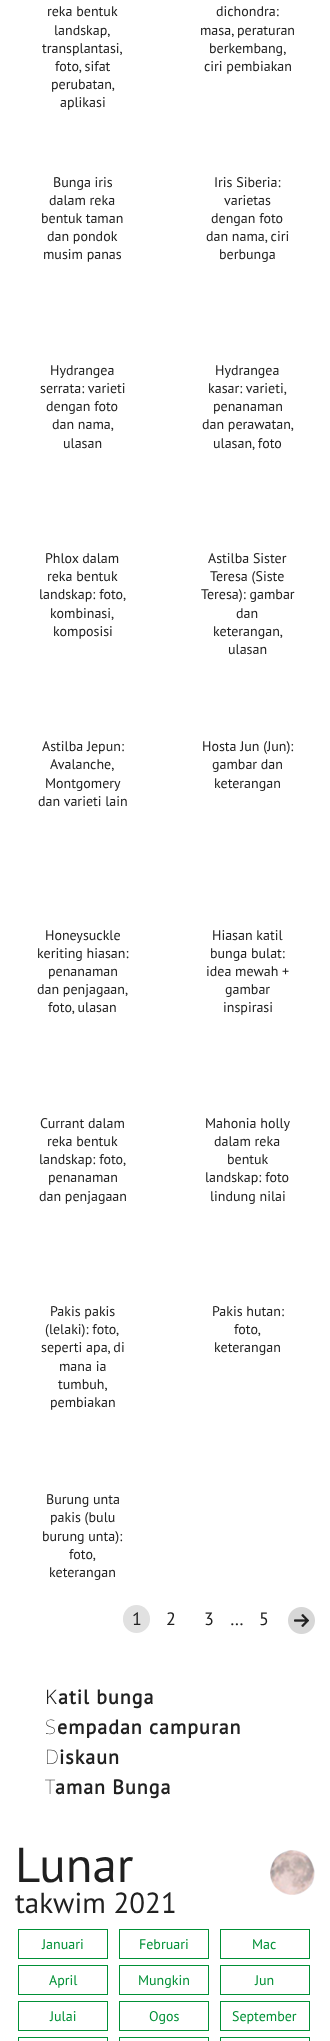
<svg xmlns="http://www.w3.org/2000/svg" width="330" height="2041">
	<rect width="100%" height="100%" fill="#FFFFFF" />
	<g font-family="PT Sans" font-size="14" fill="#202020">
		<text x="47" y="16">reka bentuk</text>
		<text x="54" y="35">landskap,</text>
		<text x="42" y="53">transplantasi,</text>
		<text x="55" y="71">foto, sifat</text>
		<text x="51" y="89">perubatan,</text>
		<text x="60" y="107">aplikasi</text>
		<text x="216" y="16">dichondra:</text>
		<text x="200" y="35">masa, peraturan</text>
		<text x="209" y="53">berkembang,</text>
		<text x="204" y="71">ciri pembiakan</text>
		<text x="53" y="187">Bunga iris</text>
		<text x="49" y="205">dalam reka</text>
		<text x="41" y="223">bentuk taman</text>
		<text x="47" y="241">dan pondok</text>
		<text x="43" y="259">musim panas</text>
		<text x="214" y="187">Iris Siberia:</text>
		<text x="224" y="205">varietas</text>
		<text x="211" y="223">dengan foto</text>
		<text x="206" y="241">dan nama, ciri</text>
		<text x="219" y="259">berbunga</text>
		<text x="50" y="375">Hydrangea</text>
		<text x="40" y="393">serrata: varieti</text>
		<text x="46" y="411">dengan foto</text>
		<text x="52" y="429">dan nama,</text>
		<text x="63" y="448">ulasan</text>
		<text x="215" y="375">Hydrangea</text>
		<text x="208" y="393">kasar: varieti,</text>
		<text x="213" y="411">penanaman</text>
		<text x="202" y="429">dan perawatan,</text>
		<text x="213" y="448">ulasan, foto</text>
		<text x="45" y="563">Phlox dalam</text>
		<text x="47" y="581">reka bentuk</text>
		<text x="39" y="599">landskap: foto,</text>
		<text x="50" y="618">kombinasi,</text>
		<text x="53" y="636">komposisi</text>
		<text x="208" y="563">Astilba Sister</text>
		<text x="210" y="581">Teresa (Siste</text>
		<text x="201" y="599">Teresa): gambar</text>
		<text x="236" y="618">dan</text>
		<text x="213" y="636">keterangan,</text>
		<text x="228" y="654">ulasan</text>
		<text x="42" y="751">Astilba Jepun:</text>
		<text x="50" y="769">Avalanche,</text>
		<text x="45" y="788">Montgomery</text>
		<text x="38" y="806">dan varieti lain</text>
		<text x="202" y="751">Hosta Jun (Jun):</text>
		<text x="212" y="769">gambar dan</text>
		<text x="214" y="788">keterangan</text>
		<text x="45" y="940">Honeysuckle</text>
		<text x="37" y="958">keriting hiasan:</text>
		<text x="48" y="976">penanaman</text>
		<text x="37" y="994">dan penjagaan,</text>
		<text x="48" y="1012">foto, ulasan</text>
		<text x="212" y="940">Hiasan katil</text>
		<text x="210" y="958">bunga bulat:</text>
		<text x="206" y="976">idea mewah +</text>
		<text x="225" y="994">gambar</text>
		<text x="223" y="1012">inspirasi</text>
		<text x="40" y="1128">Currant dalam</text>
		<text x="47" y="1146">reka bentuk</text>
		<text x="39" y="1164">landskap: foto,</text>
		<text x="48" y="1182">penanaman</text>
		<text x="39" y="1201">dan penjagaan</text>
		<text x="205" y="1128">Mahonia holly</text>
		<text x="214" y="1146">dalam reka</text>
		<text x="227" y="1164">bentuk</text>
		<text x="205" y="1182">landskap: foto</text>
		<text x="210" y="1201">lindung nilai</text>
		<text x="50" y="1316">Pakis pakis</text>
		<text x="45" y="1334">(lelaki): foto,</text>
		<text x="41" y="1352">seperti apa, di</text>
		<text x="59" y="1371">mana ia</text>
		<text x="58" y="1389">tumbuh,</text>
		<text x="50" y="1407">pembiakan</text>
		<text x="212" y="1316">Pakis hutan:</text>
		<text x="234" y="1334">foto,</text>
		<text x="214" y="1352">keterangan</text>
		<text x="46" y="1504">Burung unta</text>
		<text x="50" y="1522">pakis (bulu</text>
		<text x="42" y="1541">burung unta):</text>
		<text x="69" y="1559">foto,</text>
		<text x="49" y="1577">keterangan</text>
	</g>
	<rect x="123" y="1605" width="27" height="28" rx="13.5" fill="#E1E1E1" />
	<g font-family="PT Sans" font-size="18" fill="#202020">
		<text x="132" y="1625">1</text>
		<text x="166" y="1625">2</text>
		<text x="204" y="1625">3</text>
		<text x="230" y="1625">…</text>
		<text x="259" y="1625">5</text>
	</g>
	<image x="288" y="1607" width="27" height="27" href="assets/img1.png" />
	<text x="45" y="1704" font-family="Noto Sans" font-size="20" font-weight="300" letter-spacing="1" fill="#202020">K</text>
	<text x="58" y="1704" font-family="PT Sans" font-size="20" font-weight="700" letter-spacing="1" fill="#202020">atil bunga</text>
	<text x="45" y="1734" font-family="Noto Sans" font-size="20" font-weight="100" letter-spacing="1" fill="#202020">S</text>
	<text x="57" y="1734" font-family="PT Sans" font-size="20" font-weight="700" letter-spacing="1" fill="#202020">empadan campuran</text>
	<text x="45" y="1764" font-family="Noto Sans" font-size="20" font-weight="100" letter-spacing="1" fill="#202020">D</text>
	<text x="59" y="1764" font-family="PT Sans" font-size="20" font-weight="700" letter-spacing="1" fill="#202020">iskaun</text>
	<text x="45" y="1794" font-family="Noto Sans" font-size="20" font-weight="100" letter-spacing="1" fill="#202020">T</text>
	<text x="55" y="1794" font-family="PT Sans" font-size="20" font-weight="700" letter-spacing="1" fill="#202020">aman Bunga</text>
	<image x="270" y="1850" width="45" height="45" href="assets/img2.png" />
	<text x="15" y="1882" font-family="PT Sans" font-size="49" fill="#202020">Lunar</text>
	<text x="15" y="1913" font-family="PT Sans" font-size="29" fill="#202020">takwim 2021</text>
	<rect x="18.5" y="1929.5" width="89" height="29" fill="none" stroke="#009036" />
	<text x="42" y="1949" font-family="PT Sans" font-size="14" fill="#009036">Januari</text>
	<rect x="119.5" y="1929.5" width="89" height="29" fill="none" stroke="#009036" />
	<text x="139" y="1949" font-family="PT Sans" font-size="14" fill="#009036">Februari</text>
	<rect x="220.5" y="1929.5" width="89" height="29" fill="none" stroke="#009036" />
	<text x="252" y="1949" font-family="PT Sans" font-size="14" fill="#009036">Mac</text>
	<rect x="18.5" y="1965.5" width="89" height="29" fill="none" stroke="#009036" />
	<text x="49" y="1985" font-family="PT Sans" font-size="14" fill="#009036">April</text>
	<rect x="119.5" y="1965.5" width="89" height="29" fill="none" stroke="#009036" />
	<text x="138" y="1985" font-family="PT Sans" font-size="14" fill="#009036">Mungkin</text>
	<rect x="220.5" y="1965.5" width="89" height="29" fill="none" stroke="#009036" />
	<text x="255" y="1985" font-family="PT Sans" font-size="14" fill="#009036">Jun</text>
	<rect x="18.5" y="2001.5" width="89" height="29" fill="none" stroke="#009036" />
	<text x="50" y="2021" font-family="PT Sans" font-size="14" fill="#009036">Julai</text>
	<rect x="119.5" y="2001.5" width="89" height="29" fill="none" stroke="#009036" />
	<text x="149" y="2021" font-family="PT Sans" font-size="14" fill="#009036">Ogos</text>
	<rect x="220.5" y="2001.5" width="89" height="29" fill="none" stroke="#009036" />
	<text x="232" y="2021" font-family="PT Sans" font-size="14" fill="#009036">September</text>
	<rect x="18.5" y="2037.5" width="89" height="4" fill="none" stroke="#009036" />
	<rect x="119.5" y="2037.5" width="89" height="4" fill="none" stroke="#009036" />
	<rect x="220.5" y="2037.5" width="89" height="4" fill="none" stroke="#009036" />
</svg>
